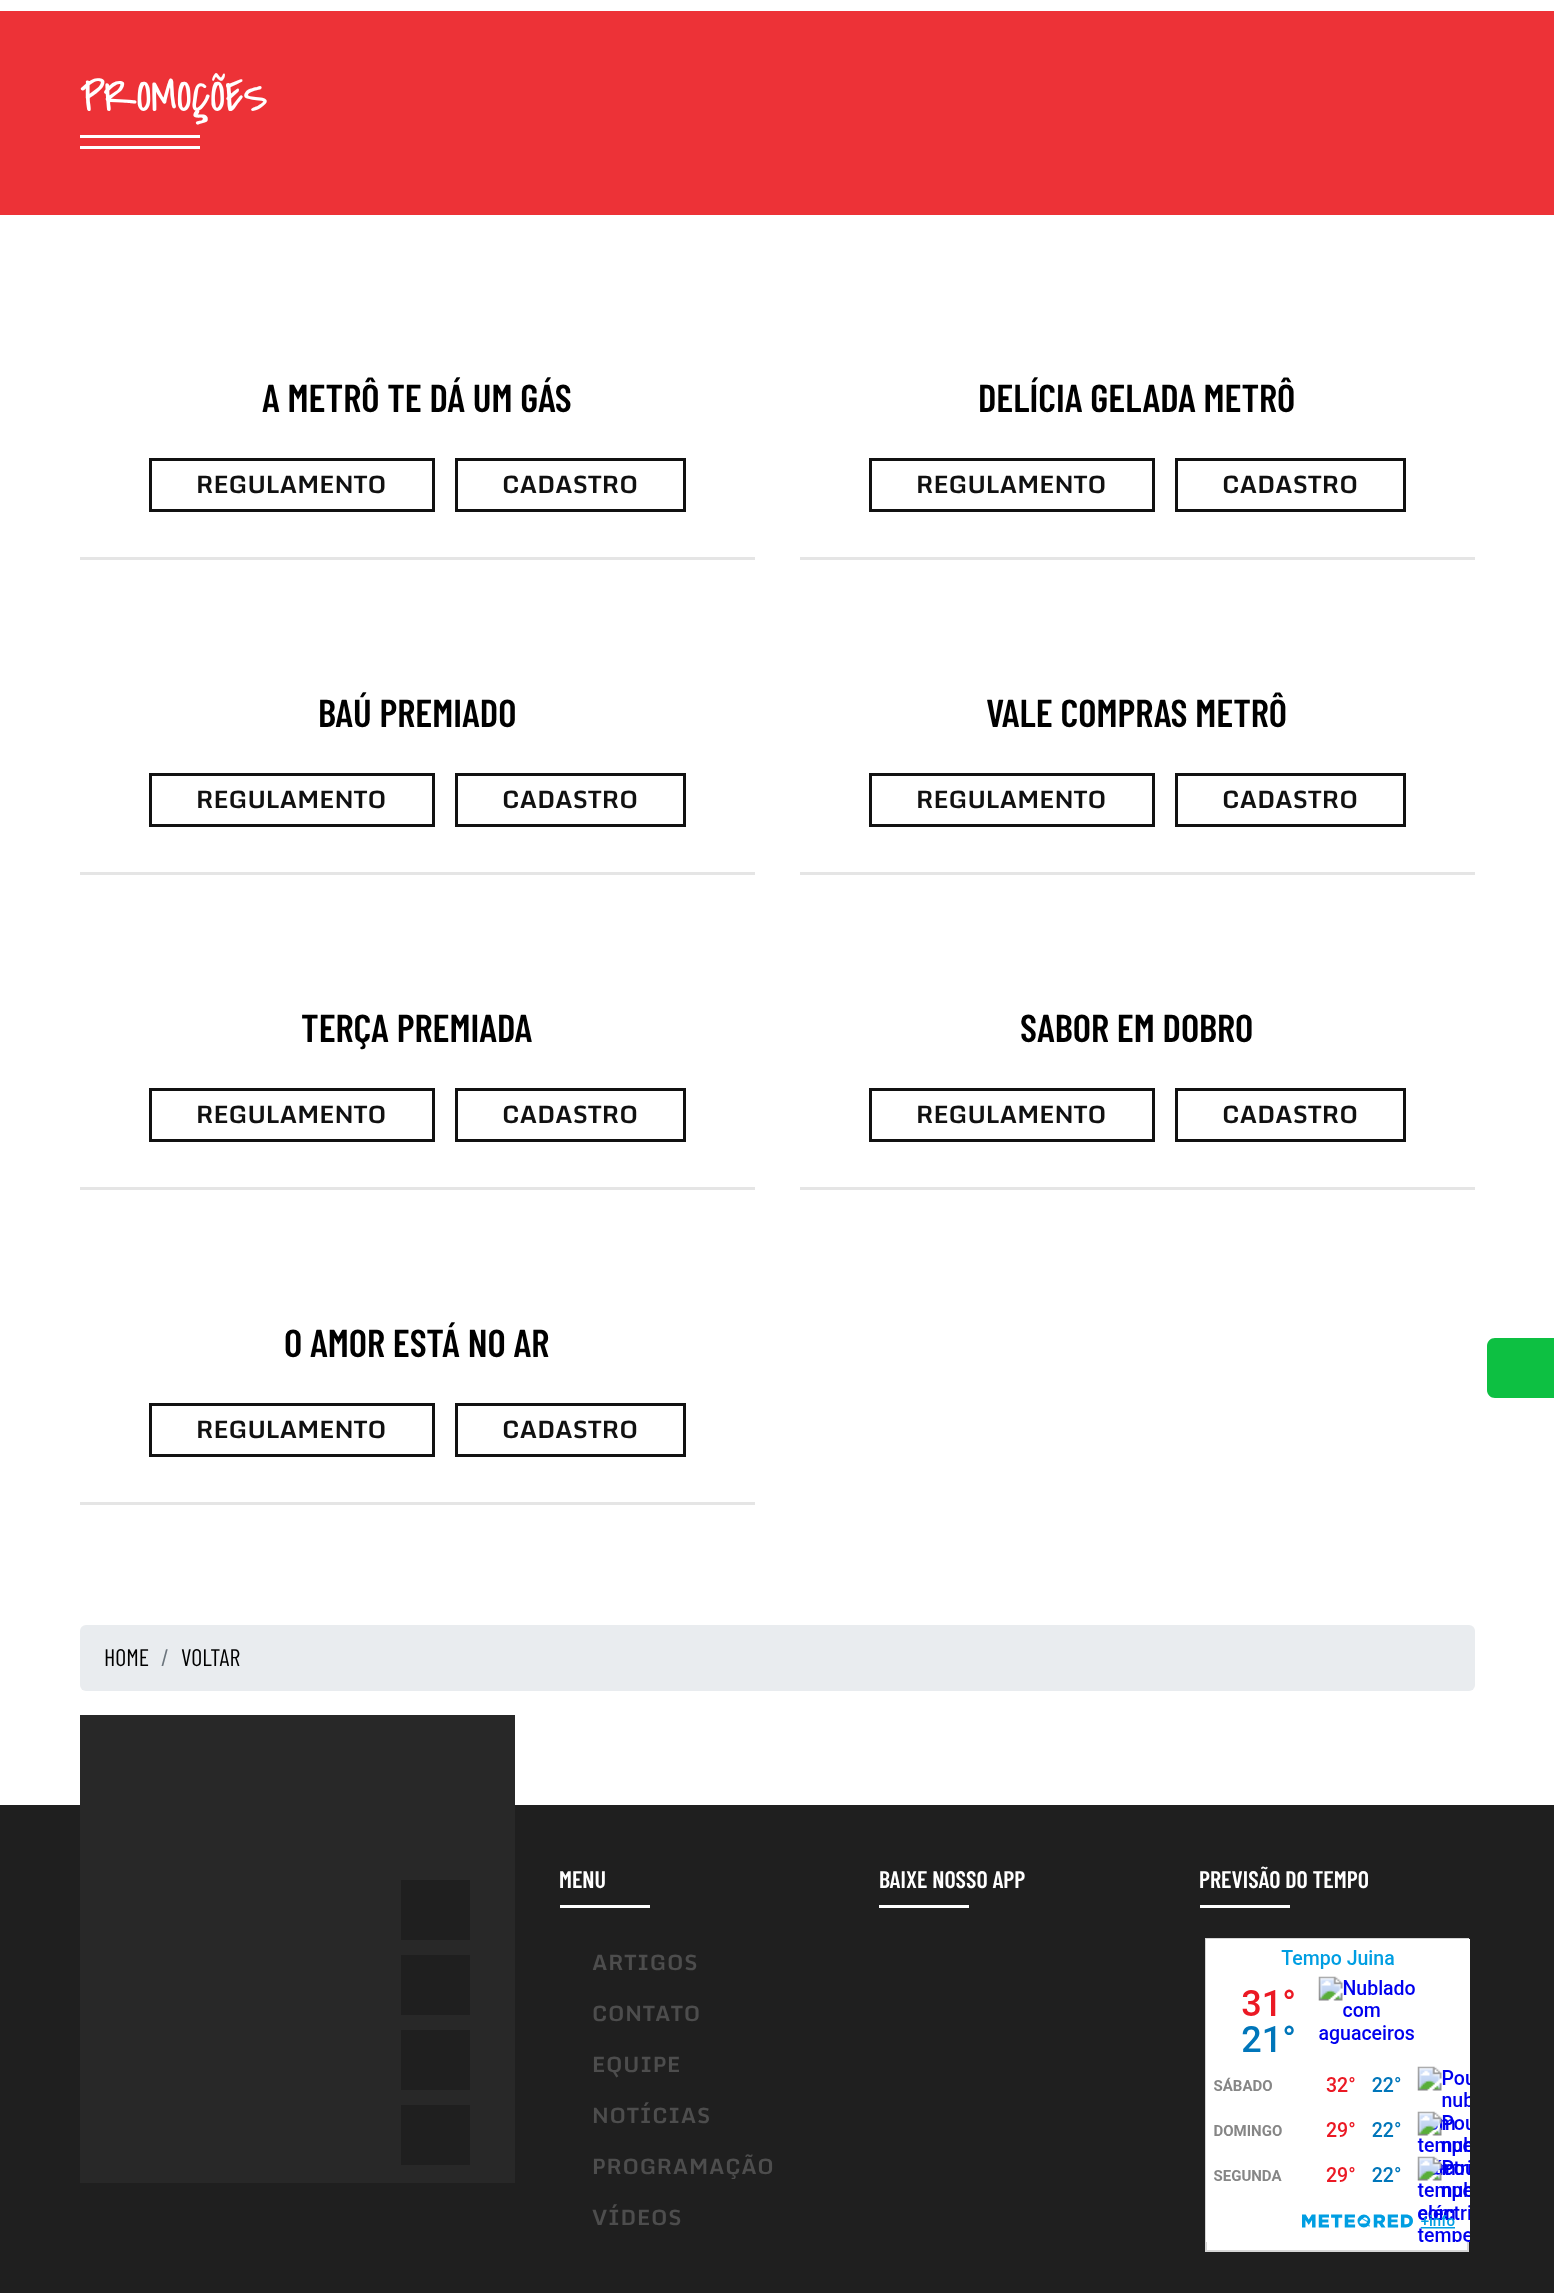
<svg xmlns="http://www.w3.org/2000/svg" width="1554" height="2293">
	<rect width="100%" height="100%" fill="#FFFFFF" />
	<rect x="0" y="11" width="1554" height="204" fill="#ED3237" />
	<text x="80" y="111" font-family="Covered By Your Grace" font-size="45" fill="#FFFFFF">PROMOÇÕES</text>
	<rect x="80" y="135" width="120" height="3" fill="#FFFFFF" />
	<rect x="80" y="146" width="120" height="3" fill="#FFFFFF" />
	<rect x="80" y="557" width="675" height="3" fill="#E5E5E5" />
	<text x="262" y="412" font-family="Barlow Condensed" font-size="39" font-weight="600" fill="#000000">A METRÔ TE DÁ UM GÁS</text>
	<rect x="150.5" y="459.5" width="283" height="51" fill="none" stroke="#111111" stroke-width="3" />
	<text x="196" y="493" font-family="Monda" font-size="24" font-weight="700" fill="#111111">REGULAMENTO</text>
	<rect x="456.5" y="459.5" width="228" height="51" fill="none" stroke="#111111" stroke-width="3" />
	<text x="502" y="493" font-family="Monda" font-size="24" font-weight="700" fill="#111111">CADASTRO</text>
	<rect x="800" y="557" width="675" height="3" fill="#E5E5E5" />
	<text x="978" y="412" font-family="Barlow Condensed" font-size="39" font-weight="600" fill="#000000">DELÍCIA GELADA METRÔ</text>
	<rect x="870.5" y="459.5" width="283" height="51" fill="none" stroke="#111111" stroke-width="3" />
	<text x="916" y="493" font-family="Monda" font-size="24" font-weight="700" fill="#111111">REGULAMENTO</text>
	<rect x="1176.5" y="459.5" width="228" height="51" fill="none" stroke="#111111" stroke-width="3" />
	<text x="1222" y="493" font-family="Monda" font-size="24" font-weight="700" fill="#111111">CADASTRO</text>
	<rect x="80" y="872" width="675" height="3" fill="#E5E5E5" />
	<text x="318" y="727" font-family="Barlow Condensed" font-size="39" font-weight="600" fill="#000000">BAÚ PREMIADO</text>
	<rect x="150.5" y="774.5" width="283" height="51" fill="none" stroke="#111111" stroke-width="3" />
	<text x="196" y="808" font-family="Monda" font-size="24" font-weight="700" fill="#111111">REGULAMENTO</text>
	<rect x="456.5" y="774.5" width="228" height="51" fill="none" stroke="#111111" stroke-width="3" />
	<text x="502" y="808" font-family="Monda" font-size="24" font-weight="700" fill="#111111">CADASTRO</text>
	<rect x="800" y="872" width="675" height="3" fill="#E5E5E5" />
	<text x="986" y="727" font-family="Barlow Condensed" font-size="39" font-weight="600" fill="#000000">VALE COMPRAS METRÔ</text>
	<rect x="870.5" y="774.5" width="283" height="51" fill="none" stroke="#111111" stroke-width="3" />
	<text x="916" y="808" font-family="Monda" font-size="24" font-weight="700" fill="#111111">REGULAMENTO</text>
	<rect x="1176.5" y="774.5" width="228" height="51" fill="none" stroke="#111111" stroke-width="3" />
	<text x="1222" y="808" font-family="Monda" font-size="24" font-weight="700" fill="#111111">CADASTRO</text>
	<rect x="80" y="1187" width="675" height="3" fill="#E5E5E5" />
	<text x="301" y="1042" font-family="Barlow Condensed" font-size="39" font-weight="600" fill="#000000">TERÇA PREMIADA</text>
	<rect x="150.5" y="1089.5" width="283" height="51" fill="none" stroke="#111111" stroke-width="3" />
	<text x="196" y="1123" font-family="Monda" font-size="24" font-weight="700" fill="#111111">REGULAMENTO</text>
	<rect x="456.5" y="1089.5" width="228" height="51" fill="none" stroke="#111111" stroke-width="3" />
	<text x="502" y="1123" font-family="Monda" font-size="24" font-weight="700" fill="#111111">CADASTRO</text>
	<rect x="800" y="1187" width="675" height="3" fill="#E5E5E5" />
	<text x="1020" y="1042" font-family="Barlow Condensed" font-size="39" font-weight="600" fill="#000000">SABOR EM DOBRO</text>
	<rect x="870.5" y="1089.5" width="283" height="51" fill="none" stroke="#111111" stroke-width="3" />
	<text x="916" y="1123" font-family="Monda" font-size="24" font-weight="700" fill="#111111">REGULAMENTO</text>
	<rect x="1176.5" y="1089.5" width="228" height="51" fill="none" stroke="#111111" stroke-width="3" />
	<text x="1222" y="1123" font-family="Monda" font-size="24" font-weight="700" fill="#111111">CADASTRO</text>
	<rect x="80" y="1502" width="675" height="3" fill="#E5E5E5" />
	<text x="284" y="1357" font-family="Barlow Condensed" font-size="39" font-weight="600" fill="#000000">O AMOR ESTÁ NO AR</text>
	<rect x="150.5" y="1404.5" width="283" height="51" fill="none" stroke="#111111" stroke-width="3" />
	<text x="196" y="1438" font-family="Monda" font-size="24" font-weight="700" fill="#111111">REGULAMENTO</text>
	<rect x="456.5" y="1404.5" width="228" height="51" fill="none" stroke="#111111" stroke-width="3" />
	<text x="502" y="1438" font-family="Monda" font-size="24" font-weight="700" fill="#111111">CADASTRO</text>
	<rect x="80" y="1625" width="1395" height="66" rx="6" fill="#E9ECEF" />
	<text x="104" y="1666" font-family="Barlow Condensed" font-size="24" fill="#000000">HOME</text>
	<text x="161" y="1666" font-family="Barlow Condensed" font-size="24" fill="#6C757D">/</text>
	<text x="181" y="1666" font-family="Barlow Condensed" font-size="24" fill="#000000">VOLTAR</text>
	<path d="M1495 1338H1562V1398H1495C1490.5 1398 1487 1394.5 1487 1390V1346C1487 1341.5 1490.5 1338 1495 1338Z" fill="#0DC042" />
	<rect x="0" y="1805" width="1554" height="488" fill="#1F1F1F" />
	<rect x="80" y="1715" width="435" height="468" fill="#282828" />
	<rect x="401" y="1880" width="69" height="60" fill="#1F1F1F" />
	<rect x="401" y="1955" width="69" height="60" fill="#1F1F1F" />
	<rect x="401" y="2030" width="69" height="60" fill="#1F1F1F" />
	<rect x="401" y="2105" width="69" height="60" fill="#1F1F1F" />
	<text x="559" y="1888" font-family="Barlow Condensed" font-size="24" font-weight="600" fill="#FFFFFF">MENU</text>
	<rect x="560" y="1905" width="90" height="3" fill="#FFFFFF" />
	<g font-family="Monda" font-size="21" font-weight="700" letter-spacing="0.75" fill="#4D4D4D">
		<text x="592" y="1970">ARTIGOS</text>
		<text x="592" y="2021">CONTATO</text>
		<text x="592" y="2072">EQUIPE</text>
		<text x="592" y="2123">NOTÍCIAS</text>
		<text x="592" y="2174">PROGRAMAÇÃO</text>
		<text x="592" y="2225">VÍDEOS</text>
	</g>
	<text x="879" y="1888" font-family="Barlow Condensed" font-size="24" font-weight="600" fill="#FFFFFF">BAIXE NOSSO APP</text>
	<rect x="879" y="1905" width="90" height="3" fill="#FFFFFF" />
	<text x="1199" y="1888" font-family="Barlow Condensed" font-size="24" font-weight="600" fill="#FFFFFF">PREVISÃO DO TEMPO</text>
	<rect x="1200" y="1905" width="90" height="3" fill="#FFFFFF" />
	<rect x="1207" y="2242" width="260" height="8" fill="#FFFFFF" />
	<rect x="1206" y="1939" width="262" height="312" fill="none" stroke="#D6D6D6" stroke-width="2" />
	<image x="1206" y="1939" width="264" height="303" href="assets/img1.png" />
</svg>
